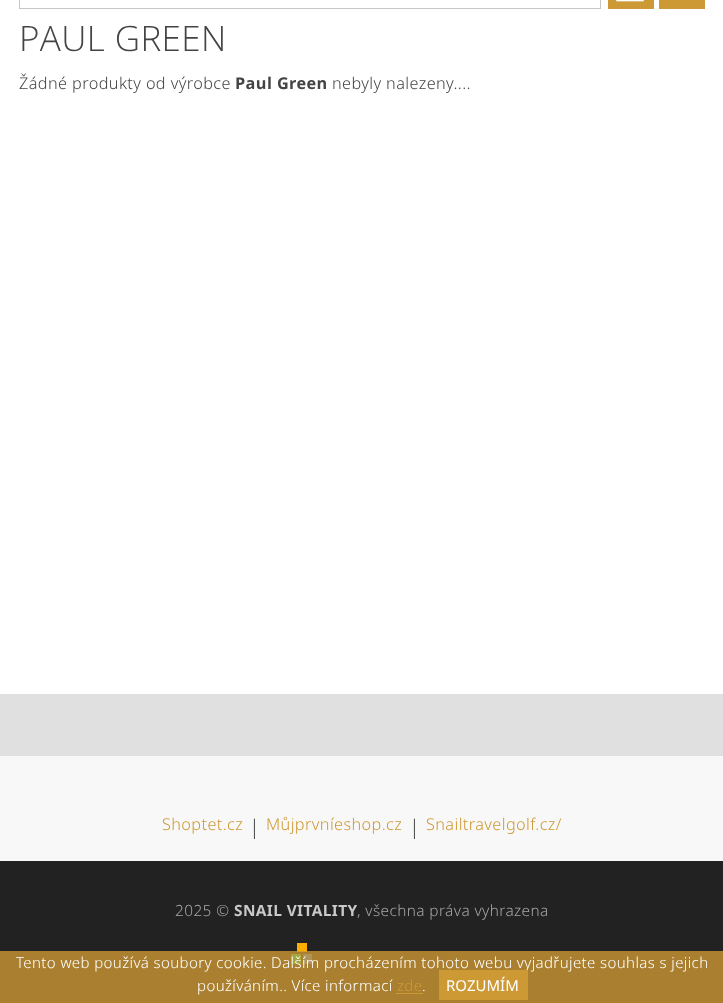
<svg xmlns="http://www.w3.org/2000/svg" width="723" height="1003">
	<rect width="100%" height="100%" fill="#FFFFFF" />
	<rect x="19.5" y="-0.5" width="581" height="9" fill="none" stroke="#C6C6C6" />
	<rect x="608" y="0" width="46" height="9" fill="#CD9934" />
	<image x="616" y="0" width="28" height="2" href="assets/img1.png" />
	<rect x="659" y="0" width="46" height="9" fill="#CD9934" />
	<text x="19" y="51" font-family="Open Sans" font-size="35" font-weight="300" letter-spacing="0.4" fill="#444444">PAUL GREEN</text>
	<text x="19" y="89" font-family="Noto Sans" font-size="16.25" font-weight="300" letter-spacing="0.4" fill="#444444">Žádné produkty od výrobce</text>
	<text x="235" y="89" font-family="Noto Sans" font-size="16.25" font-weight="700" letter-spacing="0.4" fill="#444444">Paul Green</text>
	<text x="332" y="89" font-family="Noto Sans" font-size="16.25" font-weight="300" letter-spacing="0.4" fill="#444444">nebyly nalezeny....</text>
	<rect x="0" y="694" width="723" height="62" fill="#E0E0E0" />
	<rect x="0" y="756" width="723" height="105" fill="#F8F8F8" />
	<text x="162" y="830" font-family="Noto Sans" font-size="16.25" font-weight="300" letter-spacing="0.4" fill="#CD9934">Shoptet.cz</text>
	<text x="249" y="834" font-family="Noto Sans" font-size="20" font-weight="300" letter-spacing="0.4" fill="#444444">|</text>
	<text x="266" y="830" font-family="Noto Sans" font-size="16.25" font-weight="300" letter-spacing="0.4" fill="#CD9934">Můjprvníeshop.cz</text>
	<text x="409" y="834" font-family="Noto Sans" font-size="20" font-weight="300" letter-spacing="0.4" fill="#444444">|</text>
	<text x="426" y="830" font-family="Noto Sans" font-size="16.25" font-weight="300" letter-spacing="0.4" fill="#CD9934">Snailtravelgolf.cz/</text>
	<rect x="0" y="861" width="723" height="142" fill="#222222" />
	<text x="175" y="916" font-family="Noto Sans" font-size="15.4" font-weight="300" letter-spacing="0.4" fill="#A6A6A6">2025 ©</text>
	<text x="234" y="916" font-family="Noto Sans" font-size="15.4" font-weight="700" letter-spacing="0.4" fill="#C9C9C9">SNAIL VITALITY</text>
	<text x="357" y="916" font-family="Noto Sans" font-size="15.4" font-weight="300" letter-spacing="0.4" fill="#A6A6A6">, všechna práva vyhrazena</text>
	<rect x="297" y="943" width="10" height="9" fill="#FCAF00" />
	<rect x="291" y="954" width="10" height="10" fill="#00E25A" />
	<rect x="303" y="954" width="9" height="10" fill="#3B88FF" />
	<rect x="0" y="951" width="723" height="52" fill="#CD9934" fill-opacity="0.8" />
	<g font-family="Noto Sans" font-size="15" font-weight="300" letter-spacing="0.4" fill="#FFFFFF">
		<text x="16" y="968">Tento web používá soubory cookie. Dalším procházením tohoto webu vyjadřujete souhlas s jejich</text>
		<text x="197" y="991">používáním.. Více informací</text>
	</g>
	<text x="397" y="991" font-family="Noto Sans" font-size="15" font-weight="300" letter-spacing="0.4" fill="#CD9934">zde</text>
	<rect x="396" y="993" width="27" height="1" fill="#CD9934" />
	<text x="422" y="991" font-family="Noto Sans" font-size="15" font-weight="300" letter-spacing="0.4" fill="#FFFFFF">.</text>
	<rect x="439" y="970" width="89" height="30" fill="#CD9934" />
	<text x="446" y="991" font-family="Noto Sans" font-size="15" fill="#FFFFFF">ROZUMÍM</text>
</svg>
